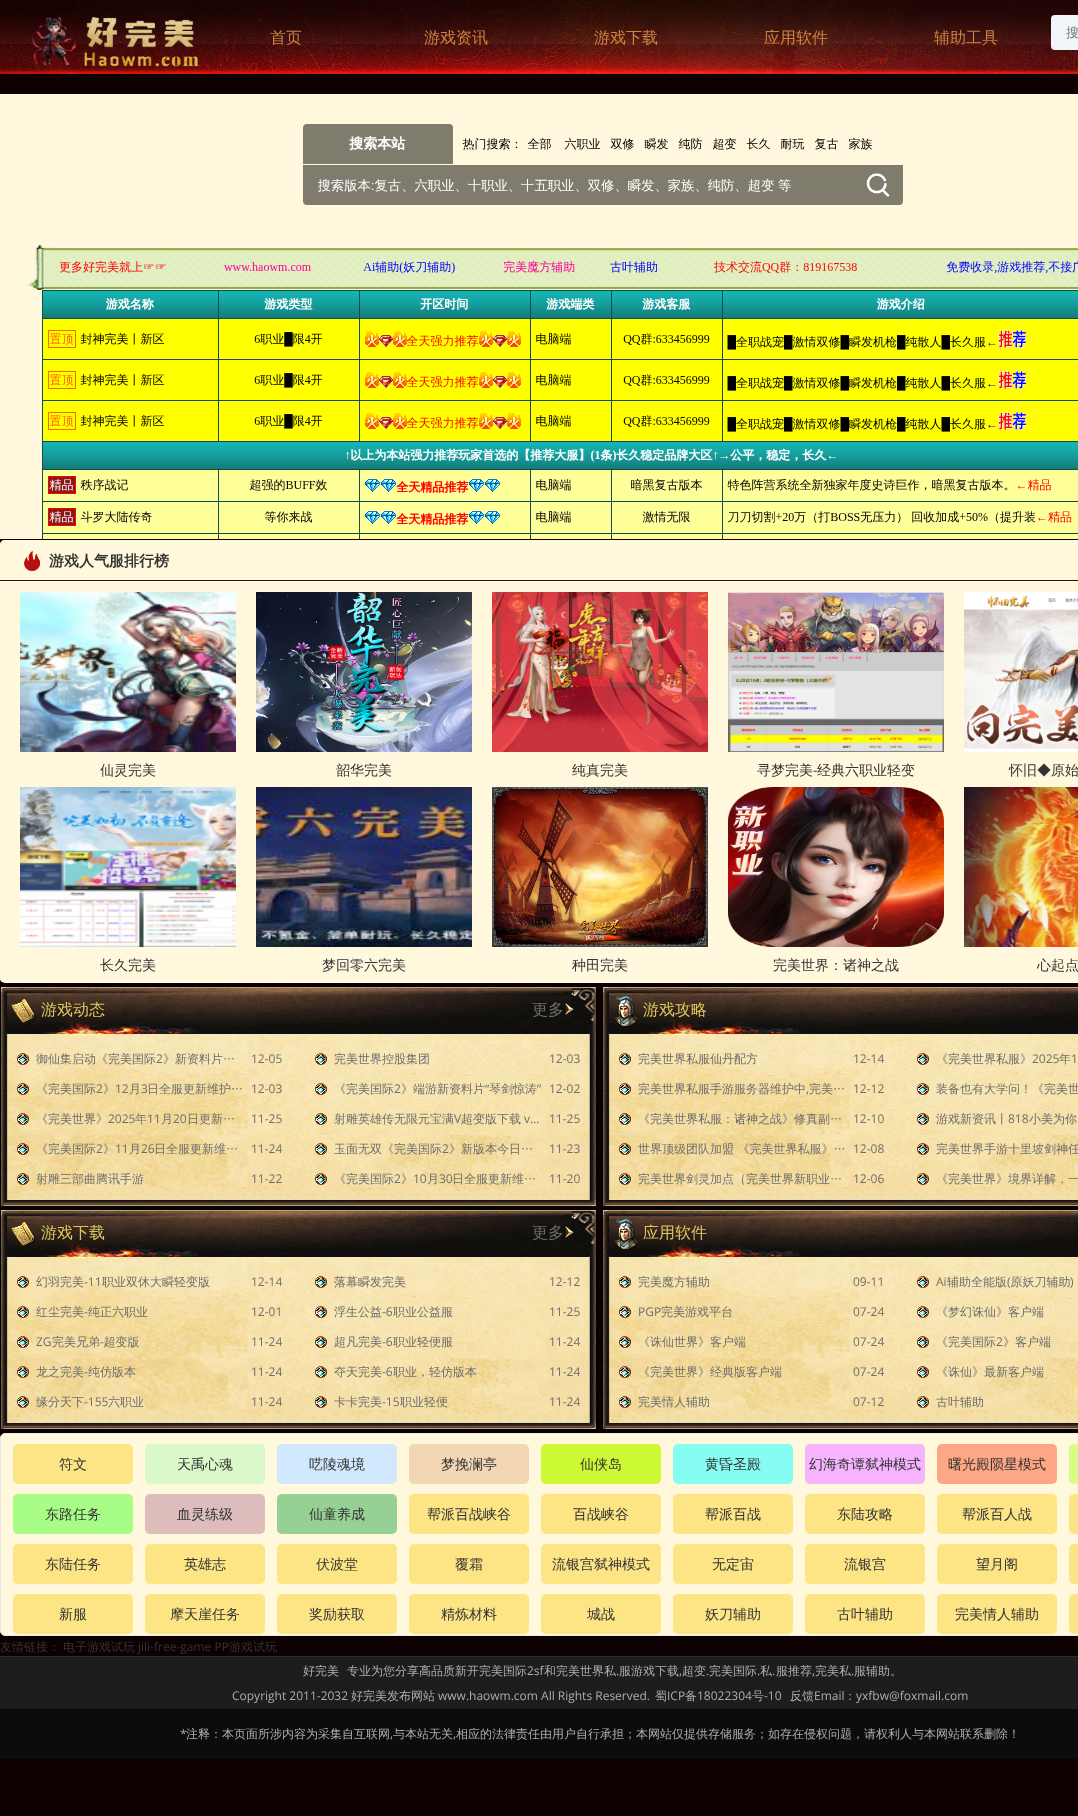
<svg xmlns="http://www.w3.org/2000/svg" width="1078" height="1816">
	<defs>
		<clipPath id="clip1"><rect x="0" y="540" width="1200" height="443" rx="5" /></clipPath>
	</defs>
	<rect width="100%" height="100%" fill="#0D0000" />
	<image x="0" y="0" width="1078" height="74" href="assets/img1.png" />
	<image x="31" y="16" width="168" height="55" href="assets/img2.png" />
	<g font-family="WenQuanYi Zen Hei" font-size="16" font-weight="500" fill="#CC843E">
		<text x="270" y="43">首页</text>
		<text x="424" y="43">游戏资讯</text>
		<text x="594" y="43">游戏下载</text>
		<text x="764" y="43">应用软件</text>
		<text x="934" y="43">辅助工具</text>
	</g>
	<rect x="1051" y="15" width="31" height="35" rx="4" fill="#F2F5F9" />
	<text x="1066" y="37" font-family="WenQuanYi Zen Hei" font-size="13" font-weight="500" fill="#757575">搜</text>
	<image x="0" y="94" width="1078" height="445" href="assets/img3.png" />
	<rect x="0" y="540" width="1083" height="443" rx="5" fill="#FFFFFF" />
	<path d="M5 540H1078C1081 540 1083 542 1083 545V581H0V545C0 542 2 540 5 540Z" fill="#FFF8DC" />
	<rect x="0" y="580" width="1078" height="1" fill="#3D0303" />
	<image x="24" y="551" width="16" height="20" href="assets/img4.png" />
	<text x="49" y="566" font-family="WenQuanYi Zen Hei" font-size="15" font-weight="700" fill="#333333">游戏人气服排行榜</text>
	<g clip-path="url(#clip1)">
		<rect x="0" y="582" width="1078" height="400" fill="#FFF8DC" />
	</g>
	<image x="20" y="592" width="216" height="160" href="assets/img5.png" />
	<text x="100" y="775" font-family="WenQuanYi Zen Hei" font-size="14" font-weight="500" fill="#333333">仙灵完美</text>
	<image x="256" y="592" width="216" height="160" href="assets/img6.png" />
	<text x="336" y="775" font-family="WenQuanYi Zen Hei" font-size="14" font-weight="500" fill="#333333">韶华完美</text>
	<image x="492" y="592" width="216" height="160" href="assets/img7.png" />
	<text x="572" y="775" font-family="WenQuanYi Zen Hei" font-size="14" font-weight="500" fill="#333333">纯真完美</text>
	<image x="728" y="592" width="216" height="160" href="assets/img8.png" />
	<text x="757" y="775" font-family="WenQuanYi Zen Hei" font-size="14" font-weight="500" fill="#333333">寻梦完美</text>
	<text x="813" y="775" font-family="Open Sans" font-size="14" fill="#333333">-</text>
	<text x="817" y="775" font-family="WenQuanYi Zen Hei" font-size="14" font-weight="500" fill="#333333">经典六职业轻变</text>
	<image x="964" y="592" width="114" height="160" href="assets/img9.png" />
	<text x="1009" y="775" font-family="WenQuanYi Zen Hei" font-size="14" font-weight="500" fill="#333333">怀旧◆原始</text>
	<image x="20" y="787" width="216" height="160" href="assets/img10.png" />
	<text x="100" y="970" font-family="WenQuanYi Zen Hei" font-size="14" font-weight="500" fill="#333333">长久完美</text>
	<image x="256" y="787" width="216" height="160" href="assets/img11.png" />
	<text x="322" y="970" font-family="WenQuanYi Zen Hei" font-size="14" font-weight="500" fill="#333333">梦回零六完美</text>
	<image x="492" y="787" width="216" height="160" href="assets/img12.png" />
	<text x="572" y="970" font-family="WenQuanYi Zen Hei" font-size="14" font-weight="500" fill="#333333">种田完美</text>
	<image x="728" y="787" width="216" height="160" href="assets/img13.png" />
	<text x="773" y="970" font-family="WenQuanYi Zen Hei" font-size="14" font-weight="500" fill="#333333">完美世界：诸神之战</text>
	<image x="964" y="787" width="114" height="160" href="assets/img14.png" />
	<text x="1037" y="970" font-family="WenQuanYi Zen Hei" font-size="14" font-weight="500" fill="#333333">心起点</text>
	<image x="1" y="987" width="596" height="221" href="assets/img15.png" />
	<rect x="0.5" y="986.5" width="597" height="222" fill="none" stroke="#010000" />
	<image x="11" y="999" width="24" height="24" href="assets/img16.png" />
	<text x="41" y="1015" font-family="WenQuanYi Zen Hei" font-size="16" font-weight="500" fill="#DFC65E">游戏动态</text>
	<image x="564" y="992" width="14" height="23" href="assets/img17.png" />
	<text x="532" y="1015" font-family="WenQuanYi Zen Hei" font-size="16" font-weight="500" fill="#6E6E6E">更多</text>
	<image x="17" y="1053" width="12" height="12" href="assets/img18.png" />
	<text x="36" y="1063" font-family="WenQuanYi Zen Hei" font-size="12" font-weight="500" fill="#6E6E6E">御仙集启动《完美国际</text>
	<text x="156" y="1063" font-family="Open Sans" font-size="12" fill="#6E6E6E">2</text>
	<text x="163" y="1063" font-family="WenQuanYi Zen Hei" font-size="12" font-weight="500" fill="#6E6E6E">》新资料片…</text>
	<text x="251" y="1063" font-family="Open Sans" font-size="12" fill="#6E6E6E">12-05</text>
	<image x="315" y="1053" width="12" height="12" href="assets/img19.png" />
	<text x="334" y="1063" font-family="WenQuanYi Zen Hei" font-size="12" font-weight="500" fill="#6E6E6E">完美世界控股集团</text>
	<text x="549" y="1063" font-family="Open Sans" font-size="12" fill="#6E6E6E">12-03</text>
	<image x="17" y="1083" width="12" height="12" href="assets/img20.png" />
	<text x="36" y="1093" font-family="WenQuanYi Zen Hei" font-size="12" font-weight="500" fill="#6E6E6E">《完美国际</text>
	<text x="96" y="1093" font-family="Open Sans" font-size="12" fill="#6E6E6E">2</text>
	<text x="103" y="1093" font-family="WenQuanYi Zen Hei" font-size="12" font-weight="500" fill="#6E6E6E">》</text>
	<text x="115" y="1093" font-family="Open Sans" font-size="12" fill="#6E6E6E">12</text>
	<text x="129" y="1093" font-family="WenQuanYi Zen Hei" font-size="12" font-weight="500" fill="#6E6E6E">月</text>
	<text x="141" y="1093" font-family="Open Sans" font-size="12" fill="#6E6E6E">3</text>
	<text x="147" y="1093" font-family="WenQuanYi Zen Hei" font-size="12" font-weight="500" fill="#6E6E6E">日全服更新维护…</text>
	<text x="251" y="1093" font-family="Open Sans" font-size="12" fill="#6E6E6E">12-03</text>
	<image x="315" y="1083" width="12" height="12" href="assets/img21.png" />
	<text x="334" y="1093" font-family="WenQuanYi Zen Hei" font-size="12" font-weight="500" fill="#6E6E6E">《完美国际</text>
	<text x="394" y="1093" font-family="Open Sans" font-size="12" fill="#6E6E6E">2</text>
	<text x="401" y="1093" font-family="WenQuanYi Zen Hei" font-size="12" font-weight="500" fill="#6E6E6E">》端游新资料片</text>
	<text x="485" y="1093" font-family="Open Sans" font-size="12" fill="#6E6E6E">“</text>
	<text x="489" y="1093" font-family="WenQuanYi Zen Hei" font-size="12" font-weight="500" fill="#6E6E6E">琴剑惊涛</text>
	<g font-family="Open Sans" font-size="12" fill="#6E6E6E">
		<text x="537" y="1093">”</text>
		<text x="549" y="1093">12-02</text>
	</g>
	<image x="17" y="1113" width="12" height="12" href="assets/img22.png" />
	<text x="36" y="1123" font-family="WenQuanYi Zen Hei" font-size="12" font-weight="500" fill="#6E6E6E">《完美世界》</text>
	<text x="108" y="1123" font-family="Open Sans" font-size="12" fill="#6E6E6E">2025</text>
	<text x="135" y="1123" font-family="WenQuanYi Zen Hei" font-size="12" font-weight="500" fill="#6E6E6E">年</text>
	<text x="147" y="1123" font-family="Open Sans" font-size="12" fill="#6E6E6E">11</text>
	<text x="161" y="1123" font-family="WenQuanYi Zen Hei" font-size="12" font-weight="500" fill="#6E6E6E">月</text>
	<text x="173" y="1123" font-family="Open Sans" font-size="12" fill="#6E6E6E">20</text>
	<text x="187" y="1123" font-family="WenQuanYi Zen Hei" font-size="12" font-weight="500" fill="#6E6E6E">日更新…</text>
	<text x="251" y="1123" font-family="Open Sans" font-size="12" fill="#6E6E6E">11-25</text>
	<image x="315" y="1113" width="12" height="12" href="assets/img23.png" />
	<text x="334" y="1123" font-family="WenQuanYi Zen Hei" font-size="12" font-weight="500" fill="#6E6E6E">射雕英雄传无限元宝满</text>
	<text x="454" y="1123" font-family="Open Sans" font-size="12" fill="#6E6E6E">V</text>
	<text x="461" y="1123" font-family="WenQuanYi Zen Hei" font-size="12" font-weight="500" fill="#6E6E6E">超变版下载</text>
	<g font-family="Open Sans" font-size="12" fill="#6E6E6E">
		<text x="524" y="1123">v…</text>
		<text x="549" y="1123">11-25</text>
	</g>
	<image x="17" y="1143" width="12" height="12" href="assets/img24.png" />
	<text x="36" y="1153" font-family="WenQuanYi Zen Hei" font-size="12" font-weight="500" fill="#6E6E6E">《完美国际</text>
	<text x="96" y="1153" font-family="Open Sans" font-size="12" fill="#6E6E6E">2</text>
	<text x="103" y="1153" font-family="WenQuanYi Zen Hei" font-size="12" font-weight="500" fill="#6E6E6E">》</text>
	<text x="115" y="1153" font-family="Open Sans" font-size="12" fill="#6E6E6E">11</text>
	<text x="129" y="1153" font-family="WenQuanYi Zen Hei" font-size="12" font-weight="500" fill="#6E6E6E">月</text>
	<text x="141" y="1153" font-family="Open Sans" font-size="12" fill="#6E6E6E">26</text>
	<text x="154" y="1153" font-family="WenQuanYi Zen Hei" font-size="12" font-weight="500" fill="#6E6E6E">日全服更新维…</text>
	<text x="251" y="1153" font-family="Open Sans" font-size="12" fill="#6E6E6E">11-24</text>
	<image x="315" y="1143" width="12" height="12" href="assets/img25.png" />
	<text x="334" y="1153" font-family="WenQuanYi Zen Hei" font-size="12" font-weight="500" fill="#6E6E6E">玉面无双《完美国际</text>
	<text x="442" y="1153" font-family="Open Sans" font-size="12" fill="#6E6E6E">2</text>
	<text x="449" y="1153" font-family="WenQuanYi Zen Hei" font-size="12" font-weight="500" fill="#6E6E6E">》新版本今日…</text>
	<text x="549" y="1153" font-family="Open Sans" font-size="12" fill="#6E6E6E">11-23</text>
	<image x="17" y="1173" width="12" height="12" href="assets/img26.png" />
	<text x="36" y="1183" font-family="WenQuanYi Zen Hei" font-size="12" font-weight="500" fill="#6E6E6E">射雕三部曲腾讯手游</text>
	<text x="251" y="1183" font-family="Open Sans" font-size="12" fill="#6E6E6E">11-22</text>
	<image x="315" y="1173" width="12" height="12" href="assets/img27.png" />
	<text x="334" y="1183" font-family="WenQuanYi Zen Hei" font-size="12" font-weight="500" fill="#6E6E6E">《完美国际</text>
	<text x="394" y="1183" font-family="Open Sans" font-size="12" fill="#6E6E6E">2</text>
	<text x="401" y="1183" font-family="WenQuanYi Zen Hei" font-size="12" font-weight="500" fill="#6E6E6E">》</text>
	<text x="413" y="1183" font-family="Open Sans" font-size="12" fill="#6E6E6E">10</text>
	<text x="427" y="1183" font-family="WenQuanYi Zen Hei" font-size="12" font-weight="500" fill="#6E6E6E">月</text>
	<text x="439" y="1183" font-family="Open Sans" font-size="12" fill="#6E6E6E">30</text>
	<text x="452" y="1183" font-family="WenQuanYi Zen Hei" font-size="12" font-weight="500" fill="#6E6E6E">日全服更新维…</text>
	<text x="549" y="1183" font-family="Open Sans" font-size="12" fill="#6E6E6E">11-20</text>
	<image x="603" y="987" width="475" height="221" href="assets/img28.png" />
	<rect x="602.5" y="986.5" width="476" height="222" fill="none" stroke="#010000" />
	<image x="615" y="995" width="23" height="33" href="assets/img29.png" />
	<text x="643" y="1015" font-family="WenQuanYi Zen Hei" font-size="16" font-weight="500" fill="#DFC65E">游戏攻略</text>
	<image x="619" y="1053" width="12" height="12" href="assets/img18.png" />
	<text x="638" y="1063" font-family="WenQuanYi Zen Hei" font-size="12" font-weight="500" fill="#6E6E6E">完美世界私服仙丹配方</text>
	<text x="853" y="1063" font-family="Open Sans" font-size="12" fill="#6E6E6E">12-14</text>
	<image x="917" y="1053" width="12" height="12" href="assets/img19.png" />
	<text x="936" y="1063" font-family="WenQuanYi Zen Hei" font-size="12" font-weight="500" fill="#6E6E6E">《完美世界私服》</text>
	<text x="1032" y="1063" font-family="Open Sans" font-size="12" fill="#6E6E6E">2025</text>
	<text x="1059" y="1063" font-family="WenQuanYi Zen Hei" font-size="12" font-weight="500" fill="#6E6E6E">年</text>
	<text x="1071" y="1063" font-family="Open Sans" font-size="12" fill="#6E6E6E">1</text>
	<image x="619" y="1083" width="12" height="12" href="assets/img20.png" />
	<text x="638" y="1093" font-family="WenQuanYi Zen Hei" font-size="12" font-weight="500" fill="#6E6E6E">完美世界私服手游服务器维护中</text>
	<text x="806" y="1093" font-family="Open Sans" font-size="12" fill="#6E6E6E">,</text>
	<text x="809" y="1093" font-family="WenQuanYi Zen Hei" font-size="12" font-weight="500" fill="#6E6E6E">完美…</text>
	<text x="853" y="1093" font-family="Open Sans" font-size="12" fill="#6E6E6E">12-12</text>
	<image x="917" y="1083" width="12" height="12" href="assets/img21.png" />
	<text x="936" y="1093" font-family="WenQuanYi Zen Hei" font-size="12" font-weight="500" fill="#6E6E6E">装备也有大学问！《完美世</text>
	<image x="619" y="1113" width="12" height="12" href="assets/img22.png" />
	<text x="638" y="1123" font-family="WenQuanYi Zen Hei" font-size="12" font-weight="500" fill="#6E6E6E">《完美世界私服：诸神之战》修真副…</text>
	<text x="853" y="1123" font-family="Open Sans" font-size="12" fill="#6E6E6E">12-10</text>
	<image x="917" y="1113" width="12" height="12" href="assets/img23.png" />
	<text x="936" y="1123" font-family="WenQuanYi Zen Hei" font-size="12" font-weight="500" fill="#6E6E6E">游戏新资讯丨</text>
	<text x="1008" y="1123" font-family="Open Sans" font-size="12" fill="#6E6E6E">818</text>
	<text x="1029" y="1123" font-family="WenQuanYi Zen Hei" font-size="12" font-weight="500" fill="#6E6E6E">小美为你</text>
	<image x="619" y="1143" width="12" height="12" href="assets/img24.png" />
	<text x="638" y="1153" font-family="WenQuanYi Zen Hei" font-size="12" font-weight="500" fill="#6E6E6E">世界顶级团队加盟 《完美世界私服》…</text>
	<text x="853" y="1153" font-family="Open Sans" font-size="12" fill="#6E6E6E">12-08</text>
	<image x="917" y="1143" width="12" height="12" href="assets/img25.png" />
	<text x="936" y="1153" font-family="WenQuanYi Zen Hei" font-size="12" font-weight="500" fill="#6E6E6E">完美世界手游十里坡剑神任</text>
	<image x="619" y="1173" width="12" height="12" href="assets/img26.png" />
	<text x="638" y="1183" font-family="WenQuanYi Zen Hei" font-size="12" font-weight="500" fill="#6E6E6E">完美世界剑灵加点（完美世界新职业…</text>
	<text x="853" y="1183" font-family="Open Sans" font-size="12" fill="#6E6E6E">12-06</text>
	<image x="917" y="1173" width="12" height="12" href="assets/img27.png" />
	<text x="936" y="1183" font-family="WenQuanYi Zen Hei" font-size="12" font-weight="500" fill="#6E6E6E">《完美世界》境界详解，一</text>
	<image x="1" y="1210" width="596" height="221" href="assets/img15.png" />
	<rect x="0.5" y="1209.5" width="597" height="222" fill="none" stroke="#010000" />
	<image x="11" y="1222" width="24" height="24" href="assets/img16.png" />
	<text x="41" y="1238" font-family="WenQuanYi Zen Hei" font-size="16" font-weight="500" fill="#DFC65E">游戏下载</text>
	<image x="564" y="1215" width="14" height="23" href="assets/img17.png" />
	<text x="532" y="1238" font-family="WenQuanYi Zen Hei" font-size="16" font-weight="500" fill="#6E6E6E">更多</text>
	<image x="17" y="1276" width="12" height="12" href="assets/img18.png" />
	<text x="36" y="1286" font-family="WenQuanYi Zen Hei" font-size="12" font-weight="500" fill="#6E6E6E">幻羽完美</text>
	<text x="84" y="1286" font-family="Open Sans" font-size="12" fill="#6E6E6E">-11</text>
	<text x="102" y="1286" font-family="WenQuanYi Zen Hei" font-size="12" font-weight="500" fill="#6E6E6E">职业双休大瞬轻变版</text>
	<text x="251" y="1286" font-family="Open Sans" font-size="12" fill="#6E6E6E">12-14</text>
	<image x="315" y="1276" width="12" height="12" href="assets/img19.png" />
	<text x="334" y="1286" font-family="WenQuanYi Zen Hei" font-size="12" font-weight="500" fill="#6E6E6E">落幕瞬发完美</text>
	<text x="549" y="1286" font-family="Open Sans" font-size="12" fill="#6E6E6E">12-12</text>
	<image x="17" y="1306" width="12" height="12" href="assets/img20.png" />
	<text x="36" y="1316" font-family="WenQuanYi Zen Hei" font-size="12" font-weight="500" fill="#6E6E6E">红尘完美</text>
	<text x="84" y="1316" font-family="Open Sans" font-size="12" fill="#6E6E6E">-</text>
	<text x="88" y="1316" font-family="WenQuanYi Zen Hei" font-size="12" font-weight="500" fill="#6E6E6E">纯正六职业</text>
	<text x="251" y="1316" font-family="Open Sans" font-size="12" fill="#6E6E6E">12-01</text>
	<image x="315" y="1306" width="12" height="12" href="assets/img21.png" />
	<text x="334" y="1316" font-family="WenQuanYi Zen Hei" font-size="12" font-weight="500" fill="#6E6E6E">浮生公益</text>
	<text x="382" y="1316" font-family="Open Sans" font-size="12" fill="#6E6E6E">-6</text>
	<text x="393" y="1316" font-family="WenQuanYi Zen Hei" font-size="12" font-weight="500" fill="#6E6E6E">职业公益服</text>
	<text x="549" y="1316" font-family="Open Sans" font-size="12" fill="#6E6E6E">11-25</text>
	<image x="17" y="1336" width="12" height="12" href="assets/img22.png" />
	<text x="36" y="1346" font-family="Open Sans" font-size="12" fill="#6E6E6E">ZG</text>
	<text x="52" y="1346" font-family="WenQuanYi Zen Hei" font-size="12" font-weight="500" fill="#6E6E6E">完美兄弟 超变版</text>
	<g font-family="Open Sans" font-size="12" fill="#6E6E6E">
		<text x="100" y="1346">-</text>
		<text x="251" y="1346">11-24</text>
	</g>
	<image x="315" y="1336" width="12" height="12" href="assets/img23.png" />
	<text x="334" y="1346" font-family="WenQuanYi Zen Hei" font-size="12" font-weight="500" fill="#6E6E6E">超凡完美</text>
	<text x="382" y="1346" font-family="Open Sans" font-size="12" fill="#6E6E6E">-6</text>
	<text x="393" y="1346" font-family="WenQuanYi Zen Hei" font-size="12" font-weight="500" fill="#6E6E6E">职业轻便服</text>
	<text x="549" y="1346" font-family="Open Sans" font-size="12" fill="#6E6E6E">11-24</text>
	<image x="17" y="1366" width="12" height="12" href="assets/img24.png" />
	<text x="36" y="1376" font-family="WenQuanYi Zen Hei" font-size="12" font-weight="500" fill="#6E6E6E">龙之完美</text>
	<text x="84" y="1376" font-family="Open Sans" font-size="12" fill="#6E6E6E">-</text>
	<text x="88" y="1376" font-family="WenQuanYi Zen Hei" font-size="12" font-weight="500" fill="#6E6E6E">纯仿版本</text>
	<text x="251" y="1376" font-family="Open Sans" font-size="12" fill="#6E6E6E">11-24</text>
	<image x="315" y="1366" width="12" height="12" href="assets/img25.png" />
	<text x="334" y="1376" font-family="WenQuanYi Zen Hei" font-size="12" font-weight="500" fill="#6E6E6E">夺天完美</text>
	<text x="382" y="1376" font-family="Open Sans" font-size="12" fill="#6E6E6E">-6</text>
	<text x="393" y="1376" font-family="WenQuanYi Zen Hei" font-size="12" font-weight="500" fill="#6E6E6E">职业，轻仿版本</text>
	<text x="549" y="1376" font-family="Open Sans" font-size="12" fill="#6E6E6E">11-24</text>
	<image x="17" y="1396" width="12" height="12" href="assets/img26.png" />
	<text x="36" y="1406" font-family="WenQuanYi Zen Hei" font-size="12" font-weight="500" fill="#6E6E6E">缘分天下</text>
	<text x="84" y="1406" font-family="Open Sans" font-size="12" fill="#6E6E6E">-155</text>
	<text x="108" y="1406" font-family="WenQuanYi Zen Hei" font-size="12" font-weight="500" fill="#6E6E6E">六职业</text>
	<text x="251" y="1406" font-family="Open Sans" font-size="12" fill="#6E6E6E">11-24</text>
	<image x="315" y="1396" width="12" height="12" href="assets/img27.png" />
	<text x="334" y="1406" font-family="WenQuanYi Zen Hei" font-size="12" font-weight="500" fill="#6E6E6E">卡卡完美</text>
	<text x="382" y="1406" font-family="Open Sans" font-size="12" fill="#6E6E6E">-15</text>
	<text x="400" y="1406" font-family="WenQuanYi Zen Hei" font-size="12" font-weight="500" fill="#6E6E6E">职业轻便</text>
	<text x="549" y="1406" font-family="Open Sans" font-size="12" fill="#6E6E6E">11-24</text>
	<image x="603" y="1210" width="475" height="221" href="assets/img28.png" />
	<rect x="602.5" y="1209.5" width="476" height="222" fill="none" stroke="#010000" />
	<image x="615" y="1218" width="23" height="33" href="assets/img29.png" />
	<text x="643" y="1238" font-family="WenQuanYi Zen Hei" font-size="16" font-weight="500" fill="#DFC65E">应用软件</text>
	<image x="619" y="1276" width="12" height="12" href="assets/img18.png" />
	<text x="638" y="1286" font-family="WenQuanYi Zen Hei" font-size="12" font-weight="500" fill="#6E6E6E">完美魔方辅助</text>
	<text x="853" y="1286" font-family="Open Sans" font-size="12" fill="#6E6E6E">09-11</text>
	<image x="917" y="1276" width="12" height="12" href="assets/img19.png" />
	<text x="936" y="1286" font-family="Open Sans" font-size="12" fill="#6E6E6E">Ai</text>
	<text x="947" y="1286" font-family="WenQuanYi Zen Hei" font-size="12" font-weight="500" fill="#6E6E6E">辅助全能版 原妖刀辅助</text>
	<g font-family="Open Sans" font-size="12" fill="#6E6E6E">
		<text x="1007" y="1286">(</text>
		<text x="1070" y="1286">)</text>
	</g>
	<image x="619" y="1306" width="12" height="12" href="assets/img20.png" />
	<text x="638" y="1316" font-family="Open Sans" font-size="12" fill="#6E6E6E">PGP</text>
	<text x="661" y="1316" font-family="WenQuanYi Zen Hei" font-size="12" font-weight="500" fill="#6E6E6E">完美游戏平台</text>
	<text x="853" y="1316" font-family="Open Sans" font-size="12" fill="#6E6E6E">07-24</text>
	<image x="917" y="1306" width="12" height="12" href="assets/img21.png" />
	<text x="936" y="1316" font-family="WenQuanYi Zen Hei" font-size="12" font-weight="500" fill="#6E6E6E">《梦幻诛仙》客户端</text>
	<image x="619" y="1336" width="12" height="12" href="assets/img22.png" />
	<text x="638" y="1346" font-family="WenQuanYi Zen Hei" font-size="12" font-weight="500" fill="#6E6E6E">《诛仙世界》客户端</text>
	<text x="853" y="1346" font-family="Open Sans" font-size="12" fill="#6E6E6E">07-24</text>
	<image x="917" y="1336" width="12" height="12" href="assets/img23.png" />
	<text x="936" y="1346" font-family="WenQuanYi Zen Hei" font-size="12" font-weight="500" fill="#6E6E6E">《完美国际</text>
	<text x="996" y="1346" font-family="Open Sans" font-size="12" fill="#6E6E6E">2</text>
	<text x="1003" y="1346" font-family="WenQuanYi Zen Hei" font-size="12" font-weight="500" fill="#6E6E6E">》客户端</text>
	<image x="619" y="1366" width="12" height="12" href="assets/img24.png" />
	<text x="638" y="1376" font-family="WenQuanYi Zen Hei" font-size="12" font-weight="500" fill="#6E6E6E">《完美世界》经典版客户端</text>
	<text x="853" y="1376" font-family="Open Sans" font-size="12" fill="#6E6E6E">07-24</text>
	<image x="917" y="1366" width="12" height="12" href="assets/img25.png" />
	<text x="936" y="1376" font-family="WenQuanYi Zen Hei" font-size="12" font-weight="500" fill="#6E6E6E">《诛仙》最新客户端</text>
	<image x="619" y="1396" width="12" height="12" href="assets/img26.png" />
	<text x="638" y="1406" font-family="WenQuanYi Zen Hei" font-size="12" font-weight="500" fill="#6E6E6E">完美情人辅助</text>
	<text x="853" y="1406" font-family="Open Sans" font-size="12" fill="#6E6E6E">07-12</text>
	<image x="917" y="1396" width="12" height="12" href="assets/img27.png" />
	<text x="936" y="1406" font-family="WenQuanYi Zen Hei" font-size="12" font-weight="500" fill="#6E6E6E">古叶辅助</text>
	<rect x="0.5" y="1433.5" width="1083" height="202" rx="4.5" fill="#FFF8DC" stroke="#EAEAEA" />
	<rect x="13" y="1444" width="120" height="40" rx="5" fill="#FDE585" />
	<text x="59" y="1469" font-family="WenQuanYi Zen Hei" font-size="14" font-weight="500" fill="#333333">符文</text>
	<rect x="145" y="1444" width="120" height="40" rx="5" fill="#D9F9CA" />
	<text x="177" y="1469" font-family="WenQuanYi Zen Hei" font-size="14" font-weight="500" fill="#333333">天禹心魂</text>
	<rect x="277" y="1444" width="120" height="40" rx="5" fill="#D2E8FF" />
	<text x="309" y="1469" font-family="WenQuanYi Zen Hei" font-size="14" font-weight="500" fill="#333333">呓陵魂境</text>
	<rect x="409" y="1444" width="120" height="40" rx="5" fill="#F3D6B4" />
	<text x="441" y="1469" font-family="WenQuanYi Zen Hei" font-size="14" font-weight="500" fill="#333333">梦挽澜亭</text>
	<rect x="541" y="1444" width="120" height="40" rx="5" fill="#CCF834" />
	<text x="580" y="1469" font-family="WenQuanYi Zen Hei" font-size="14" font-weight="500" fill="#333333">仙侠岛</text>
	<rect x="673" y="1444" width="120" height="40" rx="5" fill="#85FDF3" />
	<text x="705" y="1469" font-family="WenQuanYi Zen Hei" font-size="14" font-weight="500" fill="#333333">黄昏圣殿</text>
	<rect x="805" y="1444" width="120" height="40" rx="5" fill="#F6B3FE" />
	<text x="809" y="1469" font-family="WenQuanYi Zen Hei" font-size="14" font-weight="500" fill="#333333">幻海奇谭弑神模式</text>
	<rect x="937" y="1444" width="120" height="40" rx="5" fill="#FDA785" />
	<text x="948" y="1469" font-family="WenQuanYi Zen Hei" font-size="14" font-weight="500" fill="#333333">曙光殿陨星模式</text>
	<rect x="1069" y="1444" width="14" height="40" rx="5" fill="#D7FD85" />
	<rect x="13" y="1494" width="120" height="40" rx="5" fill="#A7FD85" />
	<text x="45" y="1519" font-family="WenQuanYi Zen Hei" font-size="14" font-weight="500" fill="#333333">东路任务</text>
	<rect x="145" y="1494" width="120" height="40" rx="5" fill="#DCBDBB" />
	<text x="177" y="1519" font-family="WenQuanYi Zen Hei" font-size="14" font-weight="500" fill="#333333">血灵练级</text>
	<rect x="277" y="1494" width="120" height="40" rx="5" fill="#96D094" />
	<text x="309" y="1519" font-family="WenQuanYi Zen Hei" font-size="14" font-weight="500" fill="#333333">仙童养成</text>
	<rect x="409" y="1494" width="120" height="40" rx="5" fill="#FDE585" />
	<text x="427" y="1519" font-family="WenQuanYi Zen Hei" font-size="14" font-weight="500" fill="#333333">帮派百战峡谷</text>
	<rect x="541" y="1494" width="120" height="40" rx="5" fill="#FDE585" />
	<text x="573" y="1519" font-family="WenQuanYi Zen Hei" font-size="14" font-weight="500" fill="#333333">百战峡谷</text>
	<rect x="673" y="1494" width="120" height="40" rx="5" fill="#FDE585" />
	<text x="705" y="1519" font-family="WenQuanYi Zen Hei" font-size="14" font-weight="500" fill="#333333">帮派百战</text>
	<rect x="805" y="1494" width="120" height="40" rx="5" fill="#FDE585" />
	<text x="837" y="1519" font-family="WenQuanYi Zen Hei" font-size="14" font-weight="500" fill="#333333">东陆攻略</text>
	<rect x="937" y="1494" width="120" height="40" rx="5" fill="#FDE585" />
	<text x="962" y="1519" font-family="WenQuanYi Zen Hei" font-size="14" font-weight="500" fill="#333333">帮派百人战</text>
	<rect x="1069" y="1494" width="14" height="40" rx="5" fill="#FDE585" />
	<rect x="13" y="1544" width="120" height="40" rx="5" fill="#FDE585" />
	<text x="45" y="1569" font-family="WenQuanYi Zen Hei" font-size="14" font-weight="500" fill="#333333">东陆任务</text>
	<rect x="145" y="1544" width="120" height="40" rx="5" fill="#FDE585" />
	<text x="184" y="1569" font-family="WenQuanYi Zen Hei" font-size="14" font-weight="500" fill="#333333">英雄志</text>
	<rect x="277" y="1544" width="120" height="40" rx="5" fill="#FDE585" />
	<text x="316" y="1569" font-family="WenQuanYi Zen Hei" font-size="14" font-weight="500" fill="#333333">伏波堂</text>
	<rect x="409" y="1544" width="120" height="40" rx="5" fill="#FDE585" />
	<text x="455" y="1569" font-family="WenQuanYi Zen Hei" font-size="14" font-weight="500" fill="#333333">覆霜</text>
	<rect x="541" y="1544" width="120" height="40" rx="5" fill="#FDE585" />
	<text x="552" y="1569" font-family="WenQuanYi Zen Hei" font-size="14" font-weight="500" fill="#333333">流银宫弑神模式</text>
	<rect x="673" y="1544" width="120" height="40" rx="5" fill="#FDE585" />
	<text x="712" y="1569" font-family="WenQuanYi Zen Hei" font-size="14" font-weight="500" fill="#333333">无定宙</text>
	<rect x="805" y="1544" width="120" height="40" rx="5" fill="#FDE585" />
	<text x="844" y="1569" font-family="WenQuanYi Zen Hei" font-size="14" font-weight="500" fill="#333333">流银宫</text>
	<rect x="937" y="1544" width="120" height="40" rx="5" fill="#FDE585" />
	<text x="976" y="1569" font-family="WenQuanYi Zen Hei" font-size="14" font-weight="500" fill="#333333">望月阁</text>
	<rect x="1069" y="1544" width="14" height="40" rx="5" fill="#FDE585" />
	<rect x="13" y="1594" width="120" height="40" rx="5" fill="#FDE585" />
	<text x="59" y="1619" font-family="WenQuanYi Zen Hei" font-size="14" font-weight="500" fill="#333333">新服</text>
	<rect x="145" y="1594" width="120" height="40" rx="5" fill="#FDE585" />
	<text x="170" y="1619" font-family="WenQuanYi Zen Hei" font-size="14" font-weight="500" fill="#333333">摩天崖任务</text>
	<rect x="277" y="1594" width="120" height="40" rx="5" fill="#FDE585" />
	<text x="309" y="1619" font-family="WenQuanYi Zen Hei" font-size="14" font-weight="500" fill="#333333">奖励获取</text>
	<rect x="409" y="1594" width="120" height="40" rx="5" fill="#FDE585" />
	<text x="441" y="1619" font-family="WenQuanYi Zen Hei" font-size="14" font-weight="500" fill="#333333">精炼材料</text>
	<rect x="541" y="1594" width="120" height="40" rx="5" fill="#FDE585" />
	<text x="587" y="1619" font-family="WenQuanYi Zen Hei" font-size="14" font-weight="500" fill="#333333">城战</text>
	<rect x="673" y="1594" width="120" height="40" rx="5" fill="#FDE585" />
	<text x="705" y="1619" font-family="WenQuanYi Zen Hei" font-size="14" font-weight="500" fill="#333333">妖刀辅助</text>
	<rect x="805" y="1594" width="120" height="40" rx="5" fill="#FDE585" />
	<text x="837" y="1619" font-family="WenQuanYi Zen Hei" font-size="14" font-weight="500" fill="#333333">古叶辅助</text>
	<rect x="937" y="1594" width="120" height="40" rx="5" fill="#FDE585" />
	<text x="955" y="1619" font-family="WenQuanYi Zen Hei" font-size="14" font-weight="500" fill="#333333">完美情人辅助</text>
	<rect x="1069" y="1594" width="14" height="40" rx="5" fill="#FDE585" />
	<g font-family="WenQuanYi Zen Hei" font-size="12" font-weight="500" fill="#333333">
		<text x="0" y="1651">友情链接：</text>
		<text x="63" y="1651">电子游戏试玩</text>
	</g>
	<text x="138" y="1651" font-family="Open Sans" font-size="12" fill="#333333">jili-free-game PP</text>
	<text x="229" y="1651" font-family="WenQuanYi Zen Hei" font-size="12" font-weight="500" fill="#333333">游戏试玩</text>
	<rect x="0" y="1656" width="1078" height="1" fill="#2D2D2D" />
	<rect x="0" y="1657" width="1078" height="52" fill="#1D1D1D" />
	<g font-family="WenQuanYi Zen Hei" font-size="12" font-weight="500" fill="#ADADAD">
		<text x="303" y="1675">好完美</text>
		<text x="347" y="1675">专业为您分享高品质新开完美国际</text>
	</g>
	<text x="527" y="1675" font-family="Open Sans" font-size="12" fill="#ADADAD">2sf</text>
	<text x="544" y="1675" font-family="WenQuanYi Zen Hei" font-size="12" font-weight="500" fill="#ADADAD">和完美世界私</text>
	<text x="616" y="1675" font-family="Open Sans" font-size="12" fill="#ADADAD">.</text>
	<text x="619" y="1675" font-family="WenQuanYi Zen Hei" font-size="12" font-weight="500" fill="#ADADAD">服游戏下载</text>
	<text x="679" y="1675" font-family="Open Sans" font-size="12" fill="#ADADAD">,</text>
	<text x="682" y="1675" font-family="WenQuanYi Zen Hei" font-size="12" font-weight="500" fill="#ADADAD">超变</text>
	<text x="706" y="1675" font-family="Open Sans" font-size="12" fill="#ADADAD">.</text>
	<text x="709" y="1675" font-family="WenQuanYi Zen Hei" font-size="12" font-weight="500" fill="#ADADAD">完美国际</text>
	<text x="757" y="1675" font-family="Open Sans" font-size="12" fill="#ADADAD">.</text>
	<text x="760" y="1675" font-family="WenQuanYi Zen Hei" font-size="12" font-weight="500" fill="#ADADAD">私</text>
	<text x="772" y="1675" font-family="Open Sans" font-size="12" fill="#ADADAD">.</text>
	<text x="776" y="1675" font-family="WenQuanYi Zen Hei" font-size="12" font-weight="500" fill="#ADADAD">服推荐</text>
	<text x="812" y="1675" font-family="Open Sans" font-size="12" fill="#ADADAD">,</text>
	<text x="815" y="1675" font-family="WenQuanYi Zen Hei" font-size="12" font-weight="500" fill="#ADADAD">完美私</text>
	<text x="851" y="1675" font-family="Open Sans" font-size="12" fill="#ADADAD">.</text>
	<text x="854" y="1675" font-family="WenQuanYi Zen Hei" font-size="12" font-weight="500" fill="#ADADAD">服辅助。</text>
	<text x="232" y="1700" font-family="Open Sans" font-size="12" fill="#ADADAD">Copyright 2011-2032</text>
	<text x="351" y="1700" font-family="WenQuanYi Zen Hei" font-size="12" font-weight="500" fill="#ADADAD">好完美发布网站</text>
	<text x="438" y="1700" font-family="Open Sans" font-size="12" fill="#ADADAD">www.haowm.com All Rights Reserved.</text>
	<text x="655" y="1700" font-family="WenQuanYi Zen Hei" font-size="12" font-weight="500" fill="#ADADAD">蜀</text>
	<text x="667" y="1700" font-family="Open Sans" font-size="12" fill="#ADADAD">ICP</text>
	<text x="685" y="1700" font-family="WenQuanYi Zen Hei" font-size="12" font-weight="500" fill="#ADADAD">备</text>
	<text x="697" y="1700" font-family="Open Sans" font-size="12" fill="#ADADAD">18022304</text>
	<text x="752" y="1700" font-family="WenQuanYi Zen Hei" font-size="12" font-weight="500" fill="#ADADAD">号</text>
	<text x="764" y="1700" font-family="Open Sans" font-size="12" fill="#ADADAD">-10</text>
	<text x="790" y="1700" font-family="WenQuanYi Zen Hei" font-size="12" font-weight="500" fill="#ADADAD">反馈</text>
	<text x="814" y="1700" font-family="Open Sans" font-size="12" fill="#ADADAD">Email</text>
	<text x="844" y="1700" font-family="WenQuanYi Zen Hei" font-size="12" font-weight="500" fill="#ADADAD">：</text>
	<text x="856" y="1700" font-family="Open Sans" font-size="12" fill="#ADADAD">yxfbw@foxmail.com</text>
	<rect x="0" y="1709" width="1078" height="50" fill="#0C0C0C" />
	<text x="180" y="1738" font-family="Open Sans" font-size="12" fill="#ADADAD">*</text>
	<g font-family="WenQuanYi Zen Hei" font-size="12" font-weight="500" fill="#ADADAD">
		<text x="186" y="1738">注释：本页面所涉内容为采集自互联网</text>
		<text x="393" y="1738">与本站无关</text>
		<text x="456" y="1738">相应的法律责任由用户自行承担；本网站仅提供存储服务；如存在侵权问题，请权利人与本网站联系删除！</text>
	</g>
	<g font-family="Open Sans" font-size="12" fill="#ADADAD">
		<text x="390" y="1738">,</text>
		<text x="453" y="1738">,</text>
	</g>
</svg>
